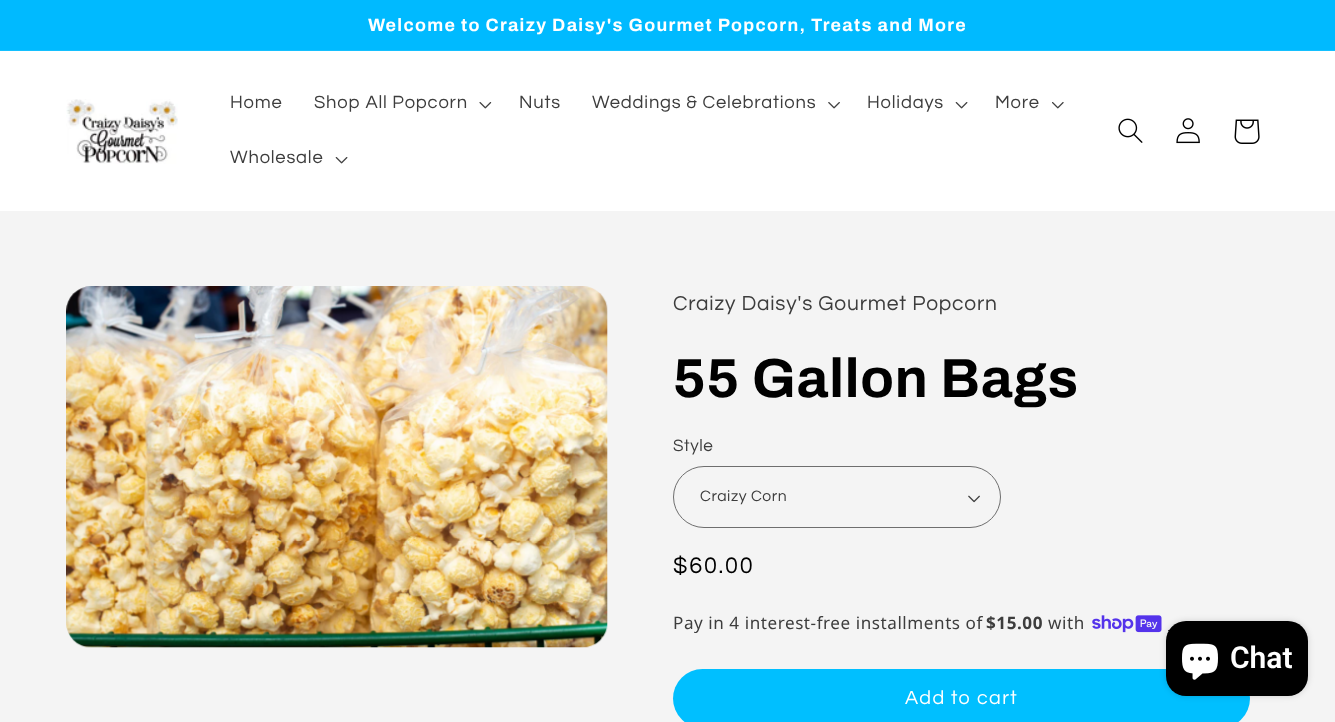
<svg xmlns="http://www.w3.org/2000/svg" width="1335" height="722">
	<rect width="100%" height="100%" fill="#F4F4F4" />
	<rect x="0" y="0" width="1335" height="50" fill="#00BAFF" />
	<rect x="0" y="50" width="1335" height="1" fill="#14C0FF" />
	<text x="368" y="31" font-family="Archivo" font-size="17.9" font-weight="700" letter-spacing="1.3" fill="#FFFFFF">Welcome to Craizy Daisy's Gourmet Popcorn, Treats and More</text>
	<rect x="0" y="51" width="1335" height="160" fill="#FFFFFF" />
	<image x="66" y="99" width="112" height="65" href="assets/img1.png" />
	<g font-family="Questrial" font-size="18.4" letter-spacing="0.8" fill="#3D3D3D">
		<text x="230" y="108">Home</text>
		<text x="314" y="108">Shop All Popcorn</text>
	</g>
	<image x="479" y="102" width="13" height="7" href="assets/img2.png" />
	<g font-family="Questrial" font-size="18.4" letter-spacing="0.8" fill="#3D3D3D">
		<text x="519" y="108">Nuts</text>
		<text x="592" y="108">Weddings &amp; Celebrations</text>
	</g>
	<image x="828" y="102" width="12" height="7" href="assets/img3.png" />
	<text x="867" y="108" font-family="Questrial" font-size="18.4" letter-spacing="0.8" fill="#3D3D3D">Holidays</text>
	<image x="955" y="102" width="13" height="7" href="assets/img4.png" />
	<text x="995" y="108" font-family="Questrial" font-size="18.4" letter-spacing="0.8" fill="#3D3D3D">More</text>
	<image x="1052" y="102" width="12" height="7" href="assets/img5.png" />
	<text x="230" y="163" font-family="Questrial" font-size="18.4" letter-spacing="0.8" fill="#3D3D3D">Wholesale</text>
	<image x="335" y="157" width="13" height="7" href="assets/img4.png" />
	<image x="1118" y="118" width="25" height="25" href="assets/img6.png" />
	<image x="1176" y="118" width="24" height="26" href="assets/img7.png" />
	<image x="1234" y="119" width="26" height="25" href="assets/img8.png" />
	<image x="66" y="286" width="542" height="362" href="assets/img9.png" />
	<text x="673" y="310" font-family="Questrial" font-size="21" letter-spacing="0.8" fill="#3D3D3D">Craizy Daisy's Gourmet Popcorn</text>
	<text x="673" y="397" font-family="Archivo" font-size="55" font-weight="700" letter-spacing="0.8" fill="#000000">55 Gallon Bags</text>
	<text x="673" y="451" font-family="Questrial" font-size="17.1" letter-spacing="0.55" fill="#3D3D3D">Style</text>
	<image x="968" y="495" width="12" height="8" href="assets/img10.png" />
	<rect x="673.5" y="466.5" width="327" height="61" rx="30.5" fill="none" stroke="#6E6E6E" />
	<text x="700" y="501" font-family="Questrial" font-size="15.75" letter-spacing="0.55" fill="#3D3D3D">Craizy Corn</text>
	<text x="673" y="573" font-family="Questrial" font-size="23.5" letter-spacing="1.75" fill="#000000">$60.00</text>
	<text x="673" y="629" font-family="Noto Sans" font-size="17.1" letter-spacing="0.55" fill="#3D3D3D">Pay in 4 interest-free installments of</text>
	<text x="986" y="629" font-family="Noto Sans" font-size="17.1" font-weight="700" letter-spacing="0.55" fill="#3D3D3D">$15.00</text>
	<text x="1048" y="629" font-family="Noto Sans" font-size="17.1" letter-spacing="0.55" fill="#3D3D3D">with</text>
	<image x="1092" y="615" width="70" height="18" href="assets/img11.png" />
	<rect x="1168" y="630" width="2" height="1" fill="#3D3D3D" />
	<rect x="673" y="669" width="577" height="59" rx="29.5" fill="#00BFFF" />
	<text x="905" y="704" font-family="Questrial" font-size="19.75" letter-spacing="1.3" fill="#FFFFFF">Add to cart</text>
	<rect x="1166" y="621" width="142" height="75" rx="20" fill="#000000" fill-opacity="0.15" filter="blur(3px)" />
	<rect x="1166" y="621" width="142" height="75" rx="20" fill="#000000" />
	<image x="1182" y="643" width="36" height="37" href="assets/img12.png" />
	<text x="1230" y="668" font-family="Roboto" font-size="30" font-weight="600" fill="#FFFFFF">Chat</text>
</svg>
